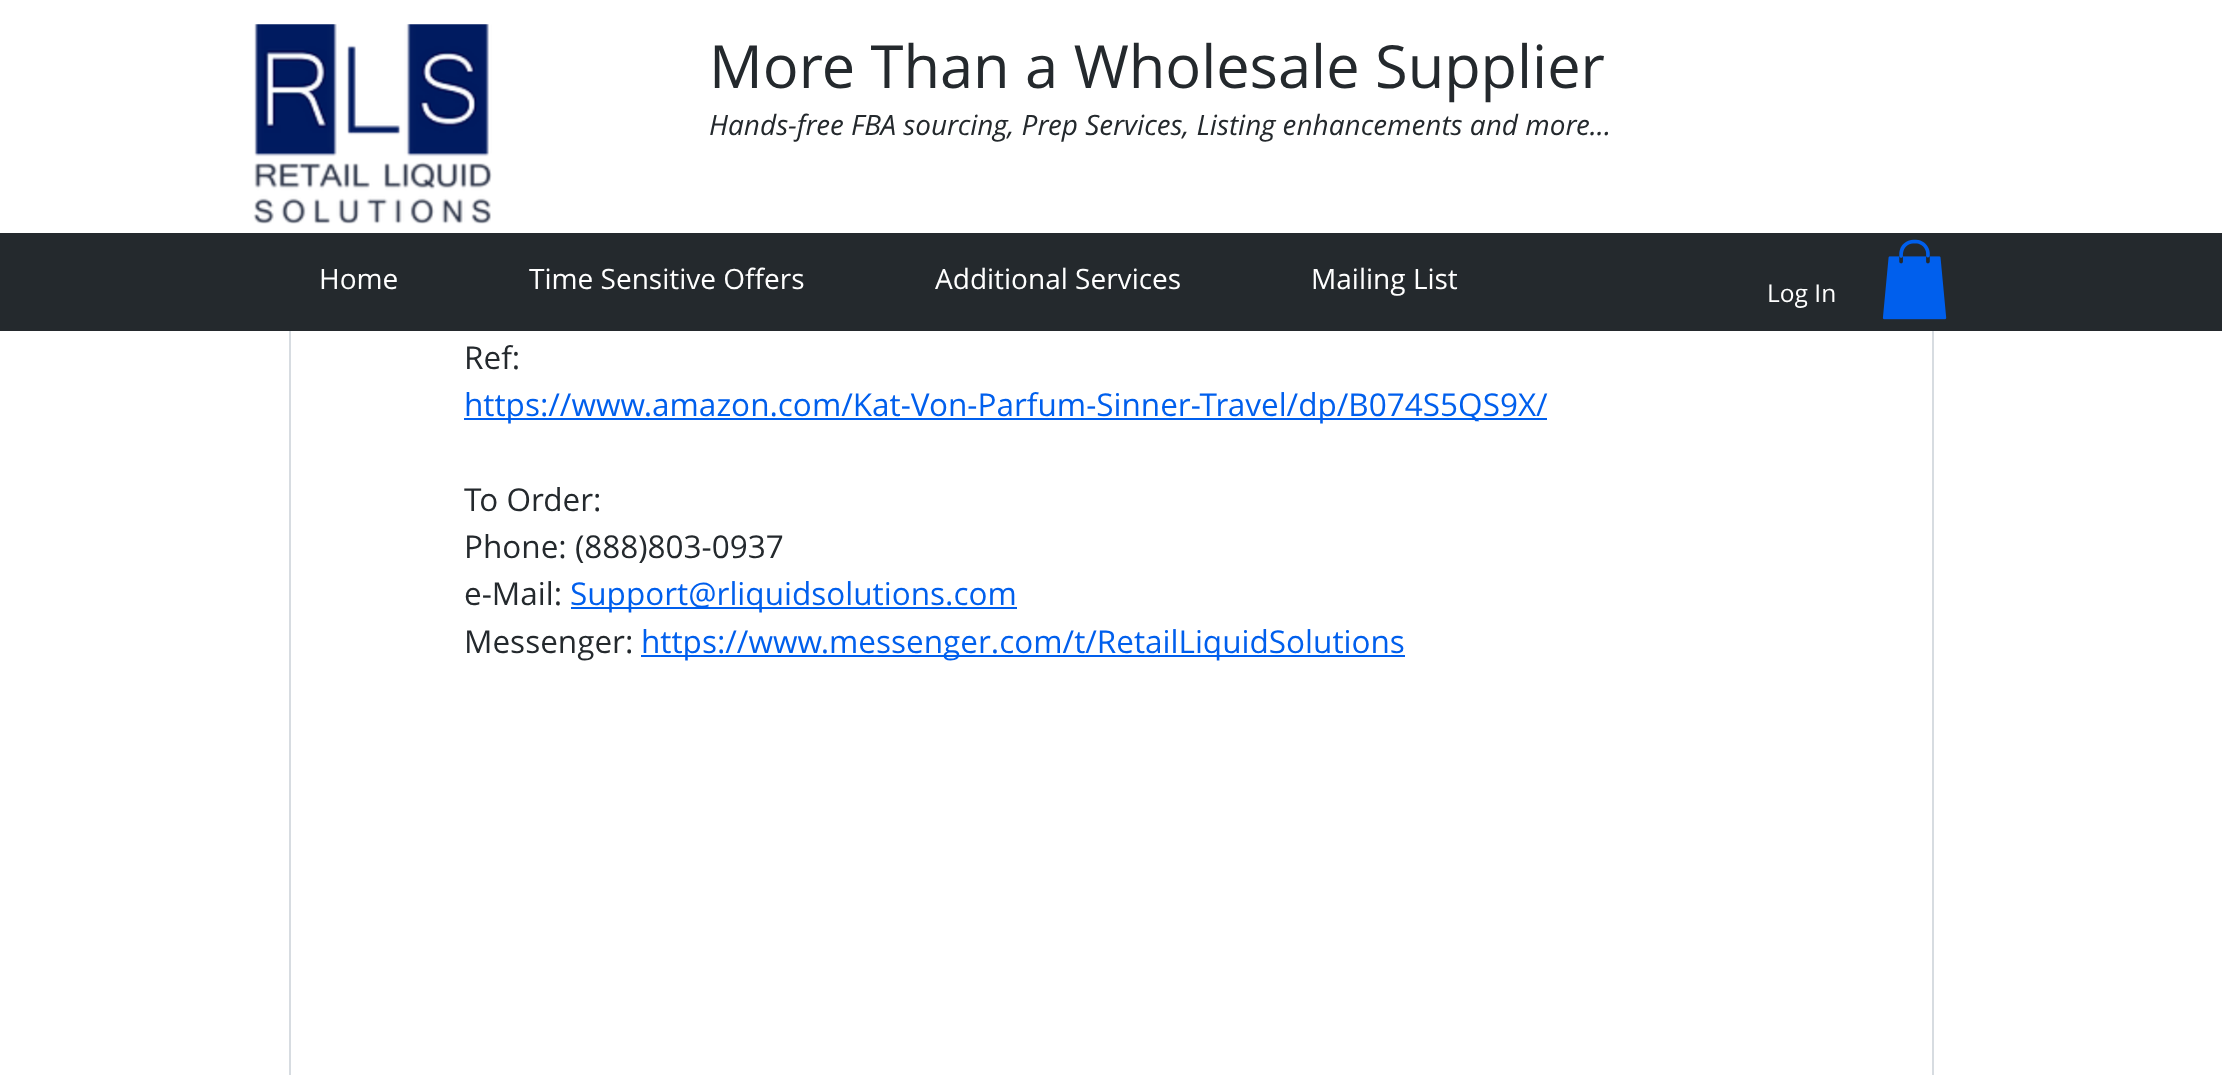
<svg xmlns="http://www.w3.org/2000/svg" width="2222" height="1075">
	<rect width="100%" height="100%" fill="#FFFFFF" />
	<rect x="290" y="-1" width="1643" height="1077" fill="none" stroke="#D7DCE1" stroke-width="2" />
	<rect x="289" y="0" width="1645" height="233" fill="#FFFFFF" />
	<image x="253" y="24" width="239" height="200" href="assets/img1.png" />
	<text x="709" y="88" font-family="Open Sans" font-size="59.5" fill="#24292D">More Than a Wholesale Supplier</text>
	<text x="709" y="135" font-family="Open Sans" font-size="28" font-style="italic" fill="#24292D">Hands-free FBA sourcing, Prep Services, Listing enhancements and more...</text>
	<rect x="0" y="233" width="2222" height="98" fill="#24292D" />
	<g font-family="Open Sans" font-size="28" fill="#FFFFFF">
		<text x="319" y="289">Home</text>
		<text x="529" y="289">Time Sensitive Offers</text>
		<text x="935" y="289">Additional Services</text>
		<text x="1311" y="289">Mailing List</text>
	</g>
	<text x="1767" y="302" font-family="Open Sans" font-size="24.5" fill="#FFFFFF">Log In</text>
	<image x="1882" y="239" width="65" height="81" href="assets/img2.png" />
	<text x="464" y="369" font-family="Open Sans" font-size="31.5" fill="#24292D">Ref:</text>
	<rect x="464" y="418" width="1083" height="2" fill="#005FED" />
	<text x="464" y="416" font-family="Open Sans" font-size="31.5" fill="#005FED">https://www.amazon.com/Kat-Von-Parfum-Sinner-Travel/dp/B074S5QS9X/</text>
	<g font-family="Open Sans" font-size="31.5" fill="#24292D">
		<text x="464" y="511">To Order:</text>
		<text x="464" y="558">Phone: (888)803-0937</text>
		<text x="464" y="605">e-Mail:</text>
	</g>
	<rect x="571" y="607" width="446" height="2" fill="#005FED" />
	<text x="570" y="605" font-family="Open Sans" font-size="31.5" fill="#005FED">Support@rliquidsolutions.com</text>
	<text x="464" y="653" font-family="Open Sans" font-size="31.5" fill="#24292D">Messenger:</text>
	<rect x="641" y="655" width="764" height="2" fill="#005FED" />
	<text x="641" y="653" font-family="Open Sans" font-size="31.5" fill="#005FED">https://www.messenger.com/t/RetailLiquidSolutions</text>
</svg>
